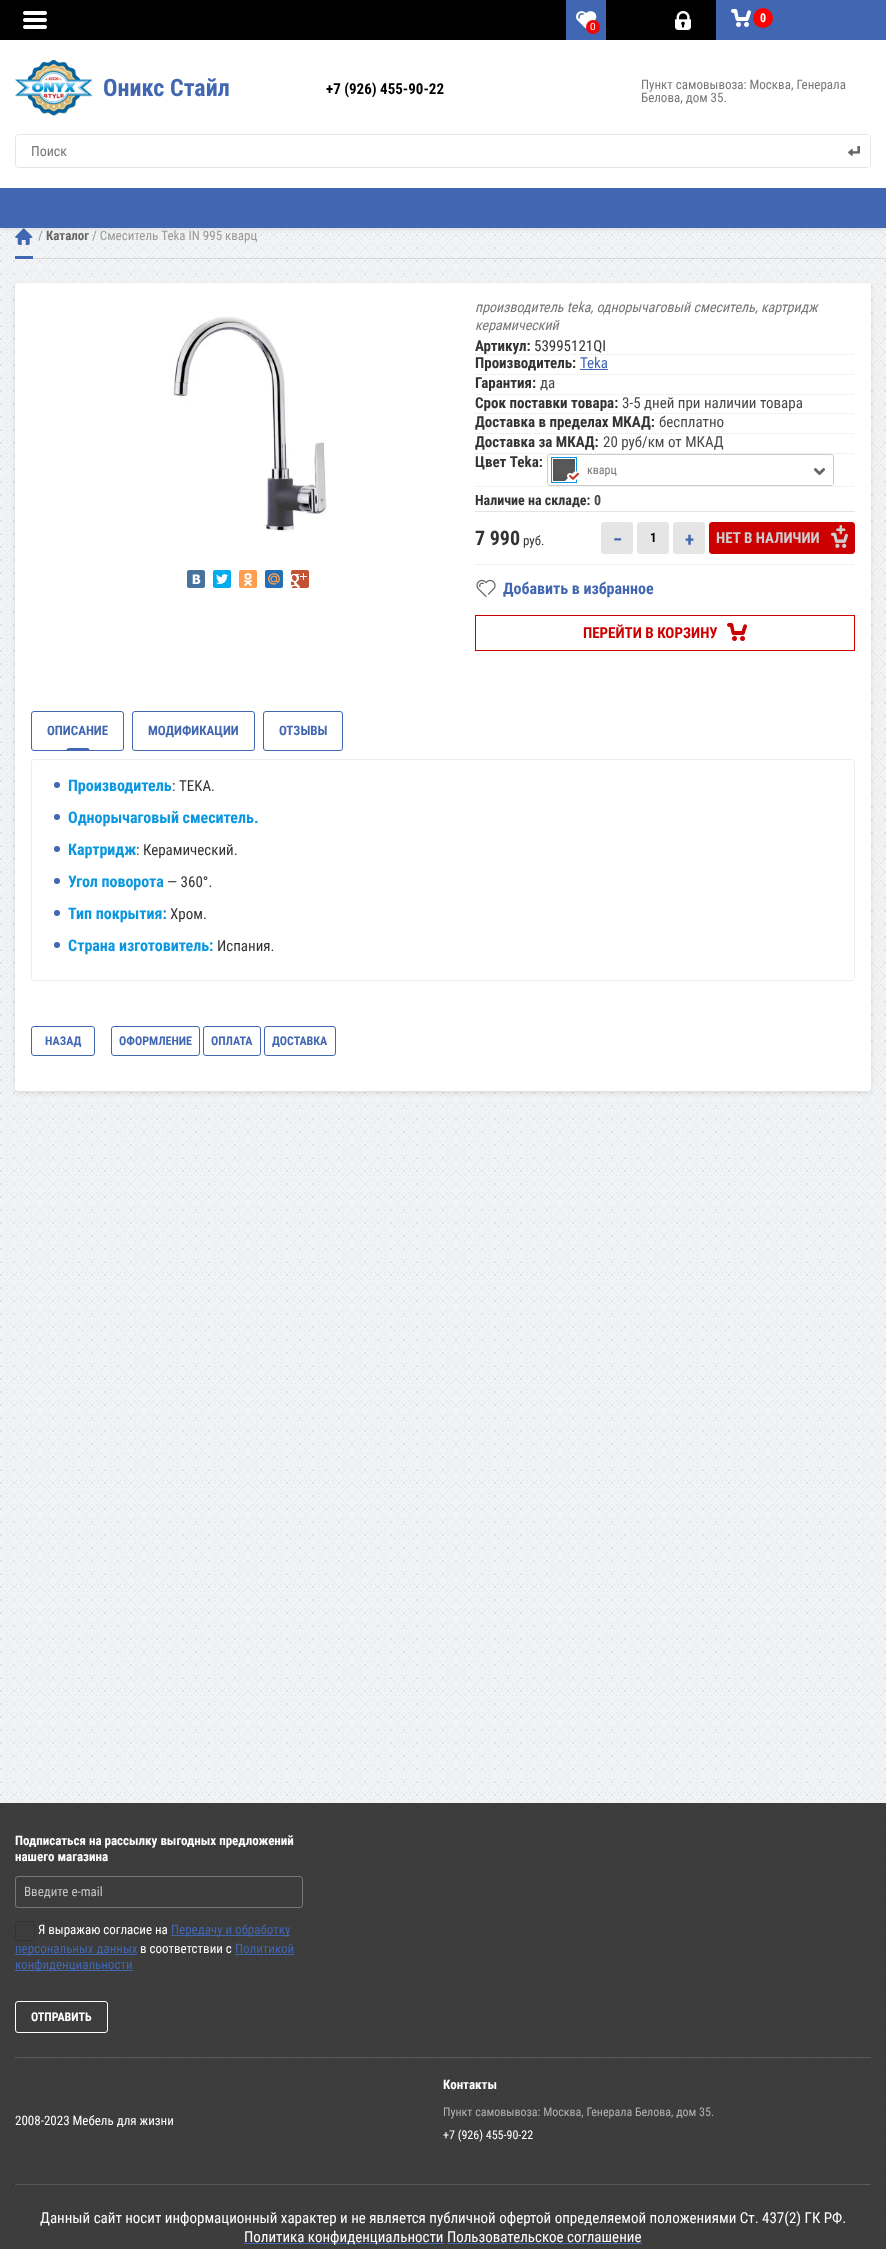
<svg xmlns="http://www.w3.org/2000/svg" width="886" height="2249">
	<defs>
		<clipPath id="clip1"><rect x="548" y="455" width="285" height="31" rx="3" /></clipPath>
	</defs>
	<rect width="100%" height="100%" fill="#F1F3F4" />
	<image x="0" y="228" width="886" height="2020" href="assets/img1.png" />
	<rect x="0" y="41" width="886" height="188" fill="#000000" fill-opacity="0.1" filter="blur(2.5px)" />
	<rect x="0" y="0" width="716" height="40" fill="#000000" />
	<image x="23" y="11" width="24" height="18" href="assets/img2.png" />
	<image x="675" y="11" width="16" height="19" href="assets/img3.png" />
	<rect x="716" y="0" width="170" height="40" fill="#4267B2" />
	<image x="731" y="9" width="20" height="18" href="assets/img4.png" />
	<circle cx="763" cy="18" r="10" fill="#FF0000" />
	<text x="760" y="22" font-family="Roboto Condensed" font-size="12" font-weight="700" fill="#FFFFFF">0</text>
	<rect x="566" y="0" width="40" height="40" fill="#4267B2" />
	<image x="576" y="11" width="21" height="18" href="assets/img5.png" />
	<circle cx="593" cy="27" r="7" fill="#F80303" />
	<text x="590" y="30" font-family="Roboto" font-size="10" fill="#FFFFFF">0</text>
	<rect x="0" y="40" width="886" height="148" fill="#FFFFFF" />
	<image x="15" y="60" width="78" height="56" href="assets/img6.png" />
	<text x="103" y="96" font-family="Roboto Condensed" font-size="24" font-weight="700" fill="#4267B2">Оникс Стайл</text>
	<text x="326" y="94" font-family="Roboto Condensed" font-size="15" font-weight="700" fill="#000000">+7 (926) 455-90-22</text>
	<g font-family="Roboto Condensed" font-size="13" fill="#777777">
		<text x="641" y="89">Пункт самовывоза: Москва, Генерала</text>
		<text x="641" y="102">Белова, дом 35.</text>
	</g>
	<rect x="15.5" y="134.5" width="855" height="33" rx="3.5" fill="none" stroke="#E5E5E5" />
	<rect x="16" y="135" width="854" height="32" rx="3" fill="#FFFFFF" />
	<image x="848" y="146" width="12" height="10" href="assets/img7.png" />
	<text x="31" y="156" font-family="Roboto Condensed" font-size="14" fill="#777777">Поиск</text>
	<rect x="0" y="188" width="886" height="40" fill="#4267B2" />
	<rect x="33" y="258" width="853" height="1" fill="#000000" fill-opacity="0.1" />
	<image x="15" y="228" width="18" height="17" href="assets/img8.png" />
	<text x="38" y="240" font-family="Roboto Condensed" font-size="13" fill="#999999">/</text>
	<text x="46" y="240" font-family="Roboto Condensed" font-size="13" font-weight="700" fill="#666666">Каталог</text>
	<text x="92" y="240" font-family="Roboto Condensed" font-size="13" fill="#999999">/ Смеситель Teka IN 995 кварц</text>
	<rect x="15" y="256" width="18" height="3" fill="#4267B2" />
	<rect x="15" y="285" width="856" height="808" rx="3" fill="#000000" fill-opacity="0.1" filter="blur(2.5px)" />
	<rect x="15" y="283" width="856" height="808" rx="3" fill="#FFFFFF" />
	<image x="172" y="316" width="155" height="216" href="assets/img9.png" />
	<rect x="187" y="570" width="18" height="18" rx="2" fill="#48729E" />
	<image x="192" y="574" width="9" height="10" href="assets/img10.png" />
	<rect x="213" y="570" width="18" height="18" rx="2" fill="#00ACED" />
	<image x="216" y="574" width="12" height="10" href="assets/img11.png" />
	<rect x="239" y="570" width="18" height="18" rx="2" fill="#FF9F4D" />
	<image x="244" y="573" width="8" height="13" href="assets/img12.png" />
	<rect x="265" y="570" width="18" height="18" rx="2" fill="#226EB7" />
	<image x="268" y="573" width="12" height="12" href="assets/img13.png" />
	<rect x="291" y="570" width="18" height="18" rx="2" fill="#C25234" />
	<image x="291" y="573" width="16" height="15" href="assets/img14.png" />
	<g font-family="Roboto Condensed" font-size="14" font-style="italic" fill="#777777">
		<text x="475" y="312">производитель teka, однорычаговый смеситель, картридж</text>
		<text x="475" y="330">керамический</text>
	</g>
	<path d="M475 354.5H855" fill="none" stroke="#E5E5E5" stroke-dasharray="1 1" />
	<text x="475" y="351" font-family="Roboto Condensed" font-size="15" font-weight="700" fill="#333333">Артикул:</text>
	<text x="534" y="351" font-family="Roboto Condensed" font-size="15" fill="#333333">53995121QI</text>
	<rect x="475" y="511" width="380" height="1" fill="#E5E5E5" />
	<text x="475" y="368" font-family="Roboto Condensed" font-size="15" font-weight="700" fill="#333333">Производитель:</text>
	<text x="580" y="368" font-family="Roboto Condensed" font-size="15" fill="#4267B2">Teka</text>
	<rect x="580" y="369" width="28" height="1" fill="#4267B2" />
	<path d="M475 374.5H855" fill="none" stroke="#E5E5E5" stroke-dasharray="1 1" />
	<text x="475" y="388" font-family="Roboto Condensed" font-size="15" font-weight="700" fill="#333333">Гарантия:</text>
	<text x="540" y="388" font-family="Roboto Condensed" font-size="15" fill="#494949">да</text>
	<path d="M475 394.5H855" fill="none" stroke="#E5E5E5" stroke-dasharray="1 1" />
	<text x="475" y="408" font-family="Roboto Condensed" font-size="15" font-weight="700" fill="#333333">Срок поставки товара:</text>
	<text x="622" y="408" font-family="Roboto Condensed" font-size="15" fill="#494949">3-5 дней при наличии товара</text>
	<path d="M475 413.5H855" fill="none" stroke="#E5E5E5" stroke-dasharray="1 1" />
	<text x="475" y="427" font-family="Roboto Condensed" font-size="15" font-weight="700" fill="#333333">Доставка в пределах МКАД:</text>
	<text x="659" y="427" font-family="Roboto Condensed" font-size="15" fill="#494949">бесплатно</text>
	<path d="M475 433.5H855" fill="none" stroke="#E5E5E5" stroke-dasharray="1 1" />
	<text x="475" y="447" font-family="Roboto Condensed" font-size="15" font-weight="700" fill="#333333">Доставка за МКАД:</text>
	<text x="603" y="447" font-family="Roboto Condensed" font-size="15" fill="#494949">20 руб/км от МКАД</text>
	<path d="M475 453.5H855" fill="none" stroke="#E5E5E5" stroke-dasharray="1 1" />
	<text x="475" y="467" font-family="Roboto Condensed" font-size="15" font-weight="700" fill="#333333">Цвет Teka:</text>
	<rect x="547.5" y="454.5" width="286" height="31" rx="2.5" fill="none" stroke="#CCCCCC" />
	<image x="553" y="459" width="22" height="22" href="assets/img15.png" />
	<rect x="551.5" y="457.5" width="25" height="25" fill="none" stroke="#0B97E0" />
	<path d="M575 471V481L570 476Z" fill="#FFFFFF" />
	<path d="M575 481H565L570 476Z" fill="#FFFFFF" />
	<image x="567" y="471" width="12" height="10" href="assets/img16.png" />
	<text x="587" y="474" font-family="Roboto Condensed" font-size="12" fill="#777777">кварц</text>
	<g clip-path="url(#clip1)">
		<path d="M808 455H830C831.5 455 833 456.5 833 458V485H808Z" fill="#FFFFFF" />
	</g>
	<image x="814" y="468" width="11" height="7" href="assets/img17.png" />
	<path d="M475 486.5H855" fill="none" stroke="#E5E5E5" stroke-dasharray="1 1" />
	<text x="475" y="505" font-family="Roboto Condensed" font-size="14" font-weight="700" fill="#333333">Наличие на складе:</text>
	<text x="594" y="505" font-family="Roboto Condensed" font-size="14" font-weight="700" fill="#494949">0</text>
	<path d="M475 564.5H855" fill="none" stroke="#E5E5E5" stroke-dasharray="1 1" />
	<text x="475" y="545" font-family="Roboto Condensed" font-size="20" font-weight="700" fill="#333333">7 990</text>
	<text x="523" y="545" font-family="Roboto Condensed" font-size="13" fill="#333333">руб.</text>
	<rect x="601.5" y="522.5" width="31" height="31" rx="2.5" fill="#E5E5E5" stroke="#E5E5E5" />
	<text x="613" y="546" font-family="Roboto Condensed" font-size="19" font-weight="700" fill="#4267B2">−</text>
	<rect x="637.5" y="522.5" width="31" height="31" rx="2.5" fill="#E5E5E5" stroke="#E5E5E5" />
	<text x="650" y="542" font-family="Roboto Condensed" font-size="13" font-weight="700" fill="#000000">1</text>
	<rect x="673.5" y="522.5" width="31" height="31" rx="2.5" fill="#E5E5E5" stroke="#E5E5E5" />
	<text x="685" y="546" font-family="Roboto Condensed" font-size="19" font-weight="700" fill="#4267B2">+</text>
	<rect x="709.5" y="522.5" width="145" height="31" rx="2.5" fill="#CC0000" stroke="#CC0000" />
	<text x="716" y="543" font-family="Roboto Condensed" font-size="15" font-weight="700" fill="#CECECE">НЕТ В НАЛИЧИИ</text>
	<image x="831" y="525" width="17" height="23" href="assets/img18.png" />
	<image x="476" y="579" width="20" height="18" href="assets/img19.png" />
	<text x="503" y="594" font-family="Roboto Condensed" font-size="16" font-weight="700" fill="#4267B2">Добавить в избранное</text>
	<rect x="475.5" y="615.5" width="379" height="35" fill="none" stroke="#CC0000" />
	<text x="583" y="638" font-family="Roboto Condensed" font-size="15" font-weight="700" fill="#CC0000">ПЕРЕЙТИ В КОРЗИНУ</text>
	<image x="727" y="623" width="20" height="18" href="assets/img20.png" />
	<rect x="31.5" y="711.5" width="92" height="39" rx="2.5" fill="none" stroke="#4267B2" />
	<text x="47" y="735" font-family="Roboto Condensed" font-size="13" font-weight="700" fill="#4267B2">ОПИСАНИЕ</text>
	<path d="M69 748H87C88.5 748 90 749.5 90 751H66C66 749.5 67.5 748 69 748Z" fill="#4267B2" />
	<rect x="132.5" y="711.5" width="122" height="39" rx="2.5" fill="none" stroke="#4267B2" />
	<text x="148" y="735" font-family="Roboto Condensed" font-size="13" font-weight="700" fill="#4267B2">МОДИФИКАЦИИ</text>
	<rect x="263.5" y="711.5" width="79" height="39" rx="2.5" fill="none" stroke="#4267B2" />
	<text x="279" y="735" font-family="Roboto Condensed" font-size="13" font-weight="700" fill="#4267B2">ОТЗЫВЫ</text>
	<rect x="31.5" y="759.5" width="823" height="221" rx="2.5" fill="none" stroke="#EEEEEE" />
	<circle cx="57" cy="785" r="3" fill="#4267B2" />
	<text x="68" y="791" font-family="Roboto Condensed" font-size="16" font-weight="700" fill="#0B97E0">Производитель</text>
	<text x="172" y="791" font-family="Roboto Condensed" font-size="15" fill="#333333">: TEKA.</text>
	<circle cx="57" cy="817" r="3" fill="#4267B2" />
	<text x="68" y="823" font-family="Roboto Condensed" font-size="16" font-weight="700" fill="#0B97E0">Однорычаговый смеситель.</text>
	<circle cx="57" cy="849" r="3" fill="#4267B2" />
	<text x="68" y="855" font-family="Roboto Condensed" font-size="16" font-weight="700" fill="#0B97E0">Картридж</text>
	<text x="136" y="855" font-family="Roboto Condensed" font-size="15" fill="#333333">: Керамический.</text>
	<circle cx="57" cy="881" r="3" fill="#4267B2" />
	<text x="68" y="887" font-family="Roboto Condensed" font-size="16" font-weight="700" fill="#0B97E0">Угол поворота</text>
	<text x="167" y="887" font-family="Roboto Condensed" font-size="15" fill="#333333">— 360°.</text>
	<circle cx="57" cy="913" r="3" fill="#4267B2" />
	<text x="68" y="919" font-family="Roboto Condensed" font-size="16" font-weight="700" fill="#0B97E0">Тип покрытия:</text>
	<text x="170" y="919" font-family="Roboto Condensed" font-size="15" fill="#333333">Хром.</text>
	<circle cx="57" cy="945" r="3" fill="#4267B2" />
	<text x="68" y="951" font-family="Roboto Condensed" font-size="16" font-weight="700" fill="#0B97E0">Страна изготовитель:</text>
	<text x="217" y="951" font-family="Roboto Condensed" font-size="15" fill="#333333">Испания.</text>
	<rect x="31.5" y="1026.5" width="63" height="29" rx="2.5" fill="none" stroke="#4267B2" />
	<text x="45" y="1045" font-family="Roboto Condensed" font-size="12" font-weight="700" fill="#4267B2">НАЗАД</text>
	<rect x="111.5" y="1026.5" width="88" height="29" rx="2.5" fill="none" stroke="#4267B2" />
	<text x="119" y="1045" font-family="Roboto Condensed" font-size="12" font-weight="700" fill="#4267B2">ОФОРМЛЕНИЕ</text>
	<rect x="203.5" y="1026.5" width="57" height="29" rx="2.5" fill="none" stroke="#4267B2" />
	<text x="211" y="1045" font-family="Roboto Condensed" font-size="12" font-weight="700" fill="#4267B2">ОПЛАТА</text>
	<rect x="264.5" y="1026.5" width="71" height="29" rx="2.5" fill="none" stroke="#4267B2" />
	<text x="272" y="1045" font-family="Roboto Condensed" font-size="12" font-weight="700" fill="#4267B2">ДОСТАВКА</text>
	<rect x="0" y="1803" width="886" height="446" fill="#000000" fill-opacity="0.75" />
	<g font-family="Roboto Condensed" font-size="13" font-weight="700" fill="#FFFFFF">
		<text x="15" y="1845">Подписаться на рассылку выгодных предложений</text>
		<text x="15" y="1861">нашего магазина</text>
	</g>
	<rect x="15.5" y="1876.5" width="287" height="31" rx="2.5" fill="none" stroke="#FFFFFF" stroke-opacity="0.3" />
	<text x="24" y="1896" font-family="Roboto Condensed" font-size="13" fill="#C5C5C5">Введите e-mail</text>
	<rect x="15.5" y="1921.5" width="19" height="19" rx="2.5" fill="none" stroke="#000000" stroke-opacity="0.15" />
	<text x="38" y="1934" font-family="Roboto Condensed" font-size="13" fill="#FFFFFF">Я выражаю согласие на</text>
	<rect x="171" y="1935" width="119" height="1" fill="#4267B2" />
	<text x="171" y="1934" font-family="Roboto Condensed" font-size="13" fill="#4267B2">Передачу и обработку</text>
	<rect x="15" y="1954" width="122" height="1" fill="#4267B2" />
	<text x="15" y="1953" font-family="Roboto Condensed" font-size="13" fill="#4267B2">персональных данных</text>
	<text x="140" y="1953" font-family="Roboto Condensed" font-size="13" fill="#FFFFFF">в соответствии с</text>
	<text x="235" y="1953" font-family="Roboto Condensed" font-size="13" fill="#4267B2">Политикой</text>
	<rect x="235" y="1954" width="59" height="1" fill="#4267B2" />
	<rect x="15" y="1970" width="118" height="1" fill="#4267B2" />
	<text x="15" y="1969" font-family="Roboto Condensed" font-size="13" fill="#4267B2">конфиденциальности</text>
	<rect x="15.5" y="2001.5" width="92" height="31" rx="2.5" fill="none" stroke="#FFFFFF" />
	<text x="31" y="2021" font-family="Roboto Condensed" font-size="12" font-weight="700" fill="#FFFFFF">ОТПРАВИТЬ</text>
	<rect x="15" y="2057" width="856" height="1" fill="#FFFFFF" fill-opacity="0.15" />
	<text x="15" y="2125" font-family="Roboto Condensed" font-size="13" fill="#FFFFFF">2008-2023 Мебель для жизни</text>
	<text x="443" y="2089" font-family="Roboto Condensed" font-size="13" font-weight="700" fill="#FFFFFF">Контакты</text>
	<text x="443" y="2116" font-family="Roboto Condensed" font-size="12" fill="#B1B1B1">Пункт самовывоза: Москва, Генерала Белова, дом 35.</text>
	<text x="443" y="2139" font-family="Roboto Condensed" font-size="12" fill="#FFFFFF">+7 (926) 455-90-22</text>
	<rect x="15" y="2184" width="856" height="1" fill="#FFFFFF" fill-opacity="0.15" />
	<text x="40" y="2223" font-family="Roboto Condensed" font-size="15" fill="#FFFFFF">Данный сайт носит информационный характер и не является публичной офертой определяемой положениями Ст. 437(2) ГК РФ.</text>
	<rect x="244" y="2243" width="200" height="1" fill="#4267B2" />
	<text x="244" y="2242" font-family="Roboto Condensed" font-size="15" fill="#FFFFFF">Политика конфиденциальности Пользовательское соглашение</text>
	<rect x="447" y="2243" width="195" height="1" fill="#4267B2" />
</svg>
